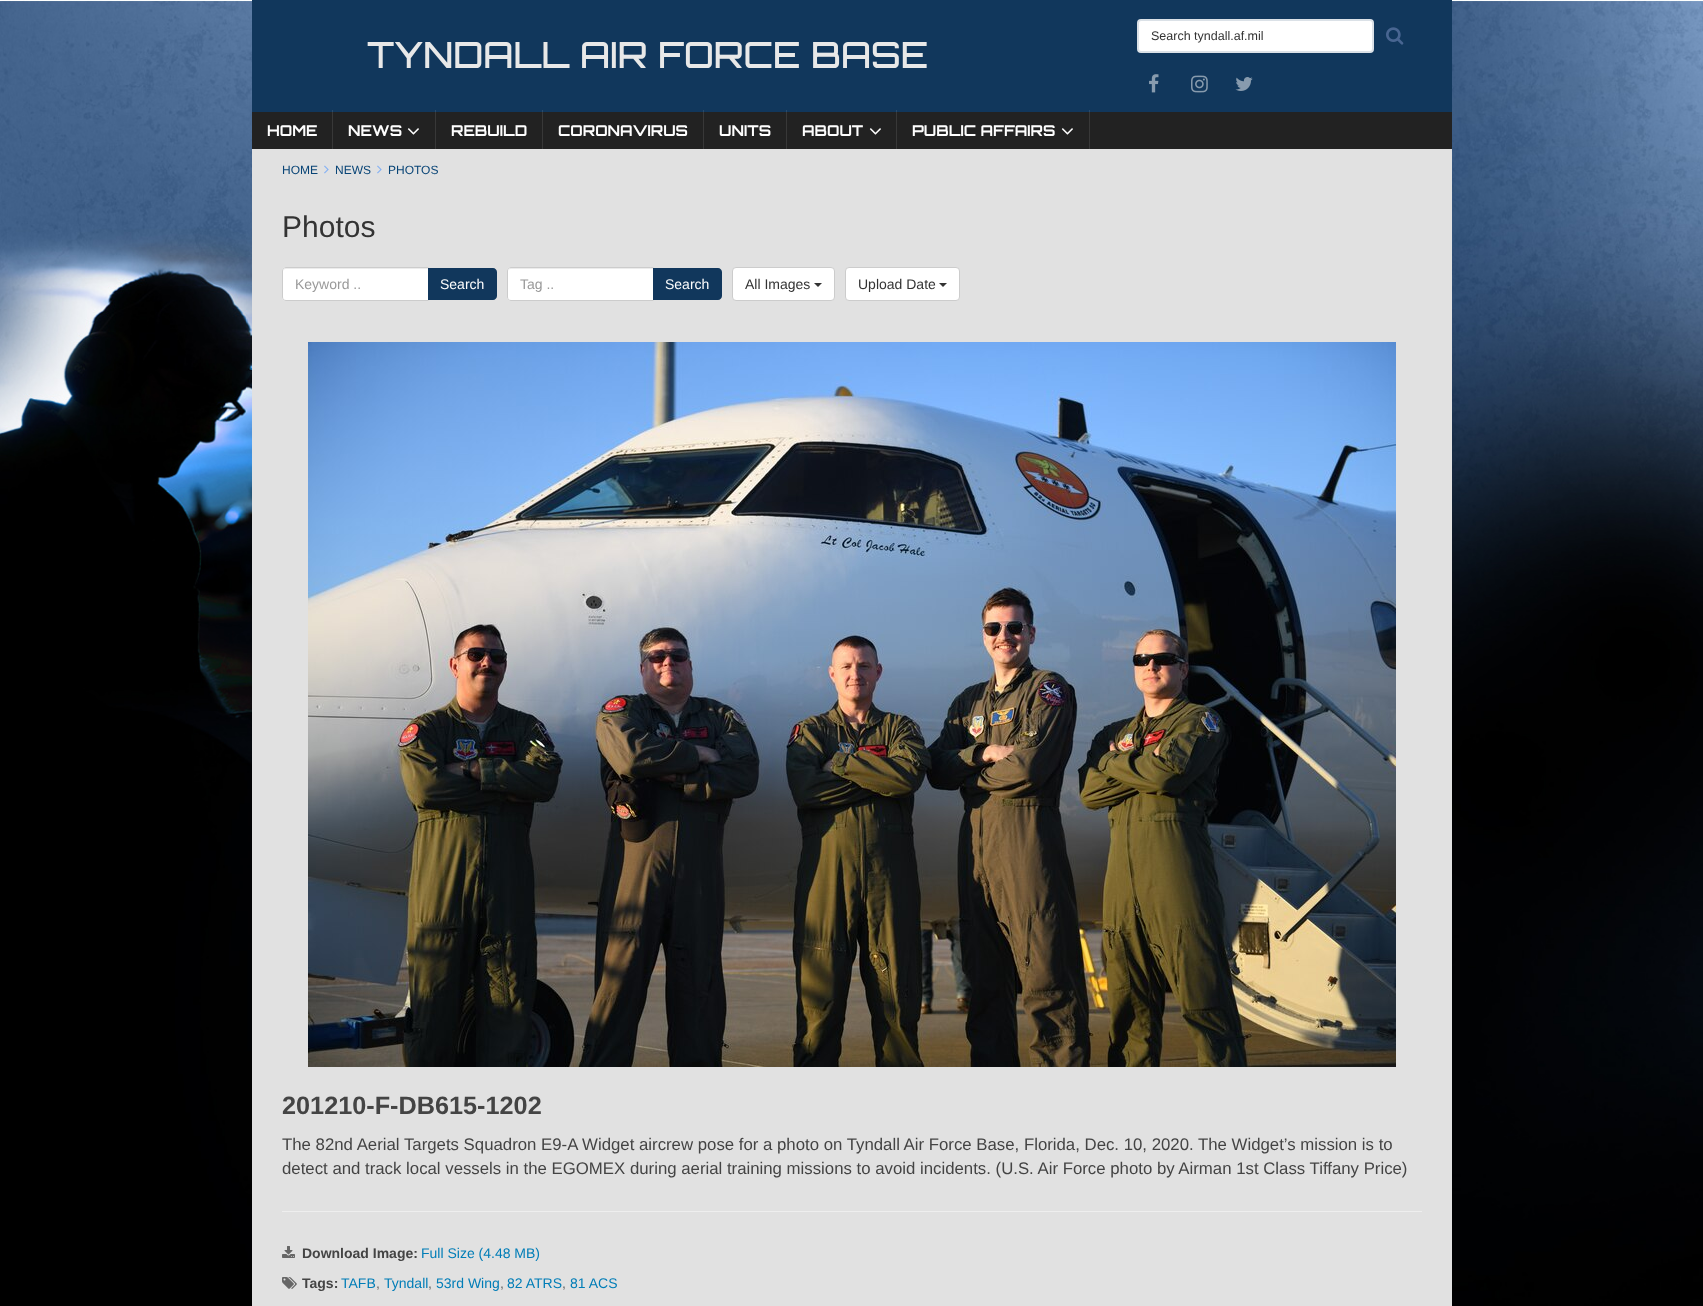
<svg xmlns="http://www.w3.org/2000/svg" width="1703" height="1306">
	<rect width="100%" height="100%" fill="#FFFFFF" />
	<image x="0" y="0" width="1703" height="1306" href="assets/img1.png" />
	<rect x="252" y="149" width="1200" height="1157" fill="#E1E1E1" />
	<rect x="252" y="0" width="1200" height="112" fill="#11375C" />
	<rect x="1138" y="20" width="235" height="32" rx="3" fill="#FFFFFF" stroke="#DBE1E7" stroke-width="2" />
	<text x="1151" y="40" font-family="Liberation Sans" font-size="12.5" fill="#333333">Search tyndall.af.mil</text>
	<image x="1386" y="27" width="18" height="18" href="assets/img2.png" />
	<image x="1149" y="74" width="10" height="19" href="assets/img3.png" />
	<image x="1191" y="75" width="17" height="18" href="assets/img4.png" />
	<image x="1235" y="77" width="18" height="14" href="assets/img5.png" />
	<text x="367" y="68" font-family="Orbitron" font-size="36" font-weight="500" fill="#E8E8E8">TYNDALL AIR FORCE BASE</text>
	<rect x="252" y="112" width="1200" height="37" fill="#222222" />
	<rect x="332" y="110" width="1" height="39" fill="#FFFFFF" fill-opacity="0.1" />
	<text x="267" y="136" font-family="Orbitron" font-size="15" font-weight="700" fill="#FEFEFE">HOME</text>
	<rect x="435" y="110" width="1" height="39" fill="#FFFFFF" fill-opacity="0.1" />
	<text x="348" y="136" font-family="Orbitron" font-size="15" font-weight="700" fill="#FEFEFE">NEWS</text>
	<image x="407" y="128" width="12" height="7" href="assets/img6.png" />
	<rect x="542" y="110" width="1" height="39" fill="#FFFFFF" fill-opacity="0.1" />
	<text x="451" y="136" font-family="Orbitron" font-size="15" font-weight="700" fill="#FEFEFE">REBUILD</text>
	<rect x="703" y="110" width="1" height="39" fill="#FFFFFF" fill-opacity="0.1" />
	<text x="558" y="136" font-family="Orbitron" font-size="15" font-weight="700" fill="#FEFEFE">CORONAVIRUS</text>
	<rect x="786" y="110" width="1" height="39" fill="#FFFFFF" fill-opacity="0.1" />
	<text x="719" y="136" font-family="Orbitron" font-size="15" font-weight="700" fill="#FEFEFE">UNITS</text>
	<rect x="896" y="110" width="1" height="39" fill="#FFFFFF" fill-opacity="0.1" />
	<text x="802" y="136" font-family="Orbitron" font-size="15" font-weight="700" fill="#FEFEFE">ABOUT</text>
	<image x="869" y="128" width="12" height="7" href="assets/img6.png" />
	<rect x="1089" y="110" width="1" height="39" fill="#FFFFFF" fill-opacity="0.1" />
	<text x="912" y="136" font-family="Orbitron" font-size="15" font-weight="700" fill="#FEFEFE">PUBLIC AFFAIRS</text>
	<image x="1061" y="128" width="12" height="7" href="assets/img6.png" />
	<text x="282" y="174" font-family="Liberation Sans" font-size="12" fill="#084476">HOME</text>
	<image x="324" y="165" width="5" height="9" href="assets/img7.png" />
	<text x="335" y="174" font-family="Liberation Sans" font-size="12" fill="#084476">NEWS</text>
	<image x="377" y="165" width="5" height="9" href="assets/img7.png" />
	<text x="388" y="174" font-family="Liberation Sans" font-size="12" fill="#084476">PHOTOS</text>
	<text x="282" y="237" font-family="Liberation Sans" font-size="30" fill="#333333">Photos</text>
	<path d="M286 267H429V301H286C284 301 282 299 282 297V271C282 269 284 267 286 267Z" fill="#FFFFFF" />
	<path d="M286 269H428V268H286C284 268 283 270 283 272C283 270 284 269 286 269Z" fill="#ECECEC" />
	<path d="M286 267.5H428.5V300.5H286C284 300.5 282.5 299 282.5 297V271C282.5 269 284 267.5 286 267.5Z" fill="none" stroke="#CCCCCC" />
	<text x="295" y="289" font-family="Liberation Sans" font-size="14" fill="#999999">Keyword ..</text>
	<path d="M428 268H493C495 268 497 270 497 272V296C497 298 495 300 493 300H428Z" fill="#11375C" />
	<text x="440" y="289" font-family="Liberation Sans" font-size="14" fill="#FEFEFE">Search</text>
	<path d="M511 267H654V301H511C509 301 507 299 507 297V271C507 269 509 267 511 267Z" fill="#FFFFFF" />
	<path d="M511 269H653V268H511C509 268 508 270 508 272C508 270 509 269 511 269Z" fill="#ECECEC" />
	<path d="M511 267.5H653.5V300.5H511C509 300.5 507.5 299 507.5 297V271C507.5 269 509 267.5 511 267.5Z" fill="none" stroke="#CCCCCC" />
	<text x="520" y="289" font-family="Liberation Sans" font-size="14" fill="#999999">Tag ..</text>
	<path d="M653 268H718C720 268 722 270 722 272V296C722 298 720 300 718 300H653Z" fill="#11375C" />
	<text x="665" y="289" font-family="Liberation Sans" font-size="14" fill="#FEFEFE">Search</text>
	<rect x="732.5" y="267.5" width="102" height="33" rx="3.5" fill="#FFFFFF" stroke="#CCCCCC" />
	<text x="745" y="289" font-family="Liberation Sans" font-size="14" fill="#333333">All Images</text>
	<path d="M814 283H822L818 287Z" fill="#333333" />
	<rect x="845.5" y="267.5" width="114" height="33" rx="3.5" fill="#FFFFFF" stroke="#CCCCCC" />
	<text x="858" y="289" font-family="Liberation Sans" font-size="14" fill="#333333">Upload Date</text>
	<path d="M939 283H947L943 287Z" fill="#333333" />
	<image x="308" y="342" width="1088" height="725" href="assets/img8.png" />
	<text x="282" y="1114" font-family="Liberation Sans" font-size="25.25" font-weight="700" fill="#444444">201210-F-DB615-1202</text>
	<g font-family="Liberation Sans" font-size="16.8" fill="#444444">
		<text x="282" y="1150">The 82nd Aerial Targets Squadron E9-A Widget aircrew pose for a photo on Tyndall Air Force Base, Florida, Dec. 10, 2020. The Widget’s mission is to</text>
		<text x="282" y="1174">detect and track local vessels in the EGOMEX during aerial training missions to avoid incidents. (U.S. Air Force photo by Airman 1st Class Tiffany Price)</text>
	</g>
	<rect x="282" y="1211" width="1140" height="1" fill="#EEEEEE" />
	<image x="282" y="1246" width="13" height="12" href="assets/img9.png" />
	<text x="302" y="1258" font-family="Liberation Sans" font-size="14" font-weight="700" fill="#444444">Download Image:</text>
	<text x="421" y="1258" font-family="Liberation Sans" font-size="14" fill="#007DB7">Full Size (4.48 MB)</text>
	<image x="282" y="1277" width="15" height="12" href="assets/img10.png" />
	<text x="302" y="1288" font-family="Liberation Sans" font-size="14" font-weight="700" fill="#444444">Tags:</text>
	<text x="341" y="1288" font-family="Liberation Sans" font-size="14" fill="#007DB7">TAFB</text>
	<text x="376" y="1288" font-family="Liberation Sans" font-size="14" fill="#666666">,</text>
	<text x="384" y="1288" font-family="Liberation Sans" font-size="14" fill="#007DB7">Tyndall</text>
	<text x="428" y="1288" font-family="Liberation Sans" font-size="14" fill="#666666">,</text>
	<text x="436" y="1288" font-family="Liberation Sans" font-size="14" fill="#007DB7">53rd Wing</text>
	<text x="500" y="1288" font-family="Liberation Sans" font-size="14" fill="#666666">,</text>
	<text x="507" y="1288" font-family="Liberation Sans" font-size="14" fill="#007DB7">82 ATRS</text>
	<text x="562" y="1288" font-family="Liberation Sans" font-size="14" fill="#666666">,</text>
	<text x="570" y="1288" font-family="Liberation Sans" font-size="14" fill="#007DB7">81 ACS</text>
</svg>
